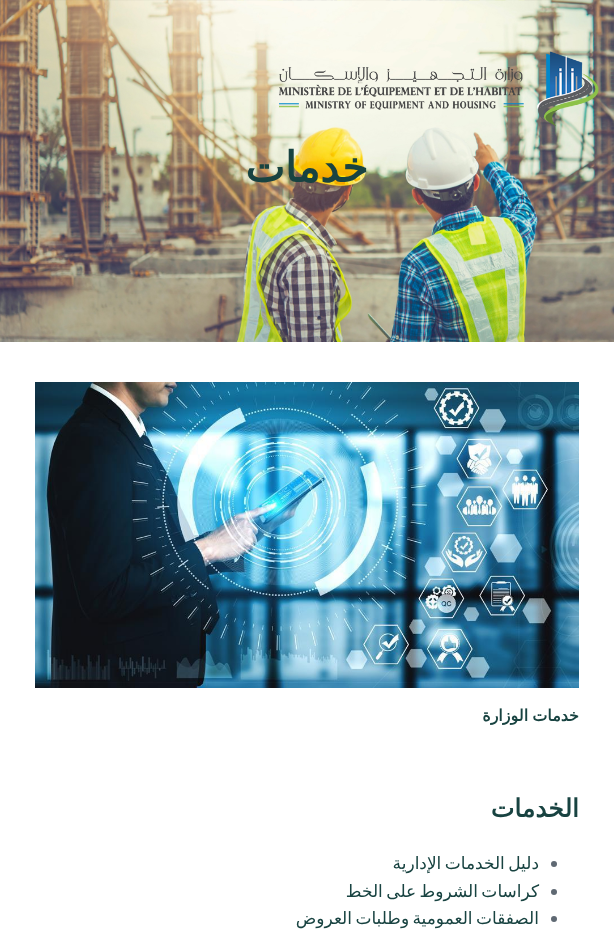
<svg xmlns="http://www.w3.org/2000/svg" width="614" height="929">
	<rect width="100%" height="100%" fill="#FFFFFF" />
	<image x="0" y="0" width="614" height="342" href="assets/img1.png" />
	<image x="279" y="51" width="320" height="75" href="assets/img2.png" />
	<text x="368" y="182" font-family="DejaVu Sans" font-size="42" font-weight="700" direction="rtl" fill="#184341">خدمات</text>
	<image x="301" y="222" width="11" height="7" href="assets/img3.png" />
	<image x="35" y="382" width="544" height="306" href="assets/img4.png" />
	<text x="579" y="721" word-spacing="-1" font-family="DejaVu Sans" font-size="16" font-weight="700" direction="rtl" fill="#184341">خدمات الوزارة</text>
	<text x="579" y="817" font-family="DejaVu Sans" font-size="25" font-weight="700" direction="rtl" fill="#184341">الخدمات</text>
	<circle cx="554" cy="864" r="3" fill="#5F6973" />
	<text x="539" y="869" word-spacing="-2" font-family="DejaVu Sans" font-size="17" direction="rtl" fill="#184341">دليل الخدمات الإدارية</text>
	<circle cx="554" cy="892" r="3" fill="#5F6973" />
	<text x="539" y="897" word-spacing="-2" font-family="DejaVu Sans" font-size="17" direction="rtl" fill="#184341">كراسات الشروط على الخط</text>
	<circle cx="554" cy="919" r="3" fill="#5F6973" />
	<text x="539" y="924" word-spacing="-2" font-family="DejaVu Sans" font-size="17" direction="rtl" fill="#184341">الصفقات العمومية وطلبات العروض</text>
</svg>
